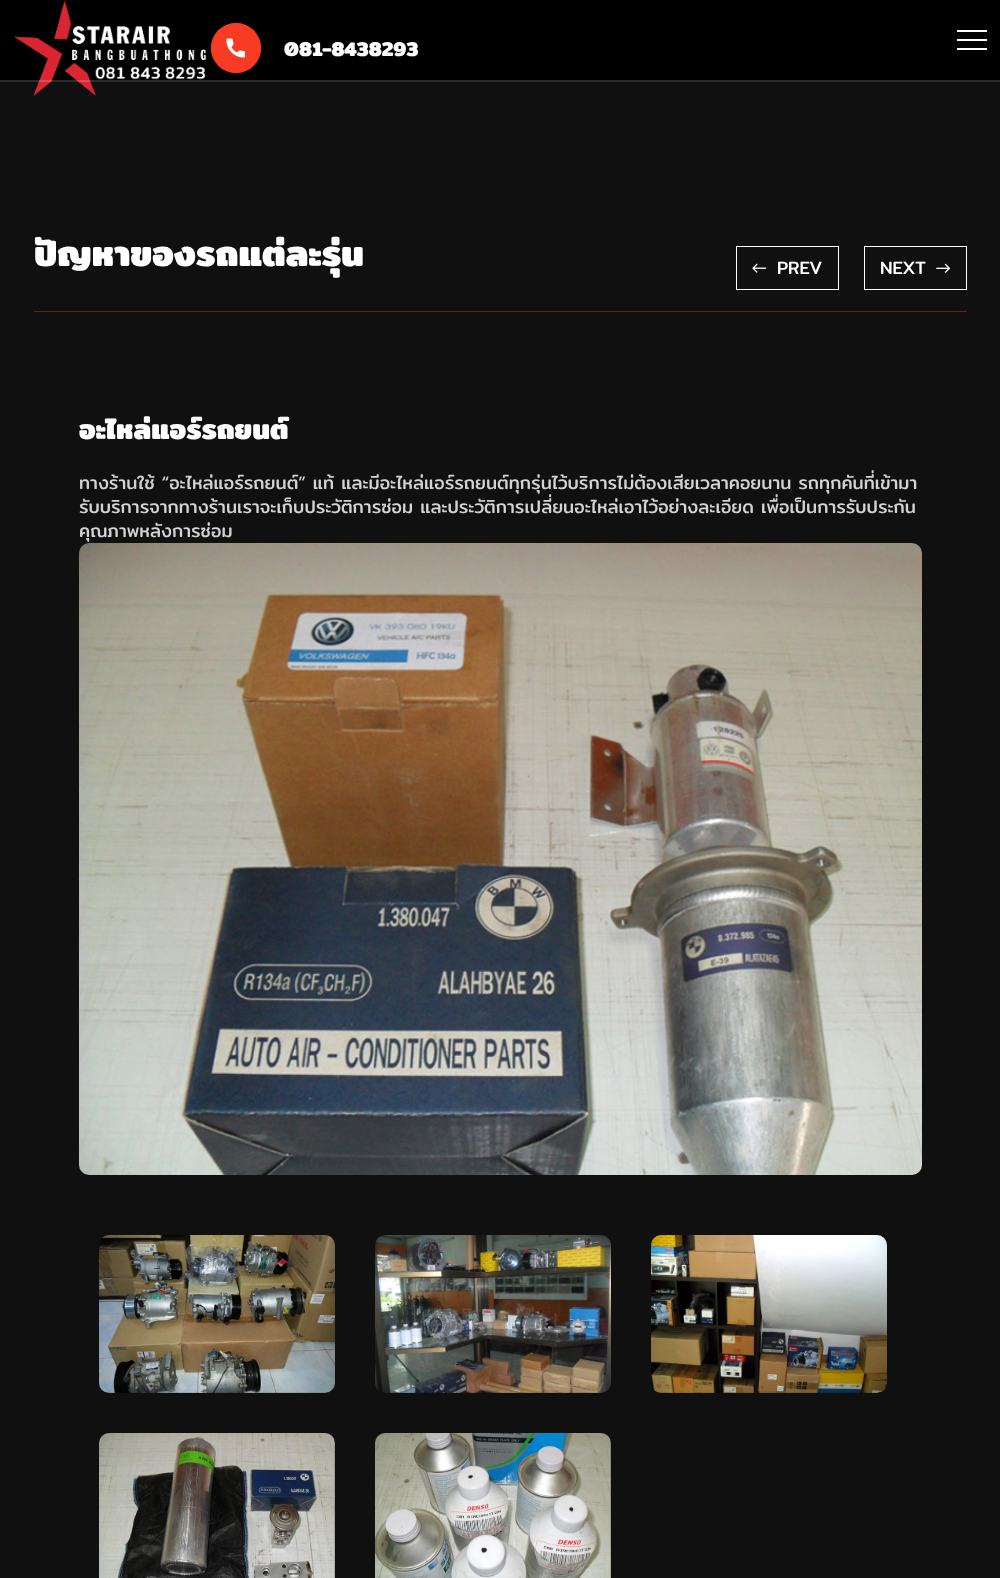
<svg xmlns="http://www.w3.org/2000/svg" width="1000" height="1578">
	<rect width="100%" height="100%" fill="#101010" />
	<rect x="0" y="0" width="1000" height="82" fill="#000000" />
	<image x="14" y="0" width="192" height="97" href="assets/img1.png" />
	<circle cx="236" cy="48" r="25" fill="#B32B19" />
	<circle cx="236" cy="48" r="25" fill="#FF3D24" fill-opacity="0.7" />
	<circle cx="236" cy="48" r="25" fill="#FF3D24" fill-opacity="0.7" />
	<image x="226" y="38" width="19" height="20" href="assets/img2.png" />
	<text x="284" y="56" font-family="Mitr" font-size="20" font-weight="700" fill="#FFFFFF">081-8438293</text>
	<rect x="957" y="39" width="30" height="2" fill="#FFFFFF" />
	<rect x="957" y="30" width="30" height="2" fill="#FFFFFF" />
	<rect x="957" y="48" width="30" height="2" fill="#FFFFFF" />
	<rect x="0" y="80" width="1000" height="2" fill="#FFFFFF" fill-opacity="0.17" />
	<text x="34" y="266" font-family="Mitr" font-size="36" font-weight="700" fill="#FFFFFF">ปัญหาของรถแต่ละรุ่น</text>
	<rect x="736.5" y="246.5" width="102" height="43" fill="none" stroke="#FFFFFF" />
	<image x="752" y="263" width="15" height="10" href="assets/img3.png" />
	<text x="777" y="274" font-family="Mitr" font-size="18" fill="#FFFFFF">PREV</text>
	<rect x="864.5" y="246.5" width="102" height="43" fill="none" stroke="#FFFFFF" />
	<text x="880" y="274" font-family="Mitr" font-size="18" fill="#FFFFFF">NEXT</text>
	<image x="936" y="263" width="15" height="10" href="assets/img4.png" />
	<rect x="34" y="311" width="933" height="1" fill="#642017" />
	<text x="79" y="439" font-family="Mitr" font-size="28" font-weight="700" fill="#FFFFFF">อะไหล่แอร์รถยนต์</text>
	<g font-family="Mitr" font-size="18" fill="#D3D3D3">
		<text x="79" y="489">ทางร้านใช้ “อะไหล่แอร์รถยนต์” แท้ และมีอะไหล่แอร์รถยนต์ทุกรุ่นไว้บริการไม่ต้องเสียเวลาคอยนาน รถทุกคันที่เข้ามา</text>
		<text x="79" y="513">รับบริการจากทางร้านเราจะเก็บประวัติการซ่อม และประวัติการเปลี่ยนอะไหล่เอาไว้อย่างละเอียด เพื่อเป็นการรับประกัน</text>
		<text x="79" y="537">คุณภาพหลังการซ่อม</text>
	</g>
	<image x="79" y="543" width="843" height="632" href="assets/img5.png" />
	<image x="99" y="1235" width="236" height="158" href="assets/img6.png" />
	<image x="375" y="1235" width="236" height="158" href="assets/img7.png" />
	<image x="651" y="1235" width="236" height="158" href="assets/img8.png" />
	<image x="99" y="1433" width="236" height="145" href="assets/img9.png" />
	<image x="375" y="1433" width="236" height="145" href="assets/img10.png" />
</svg>
